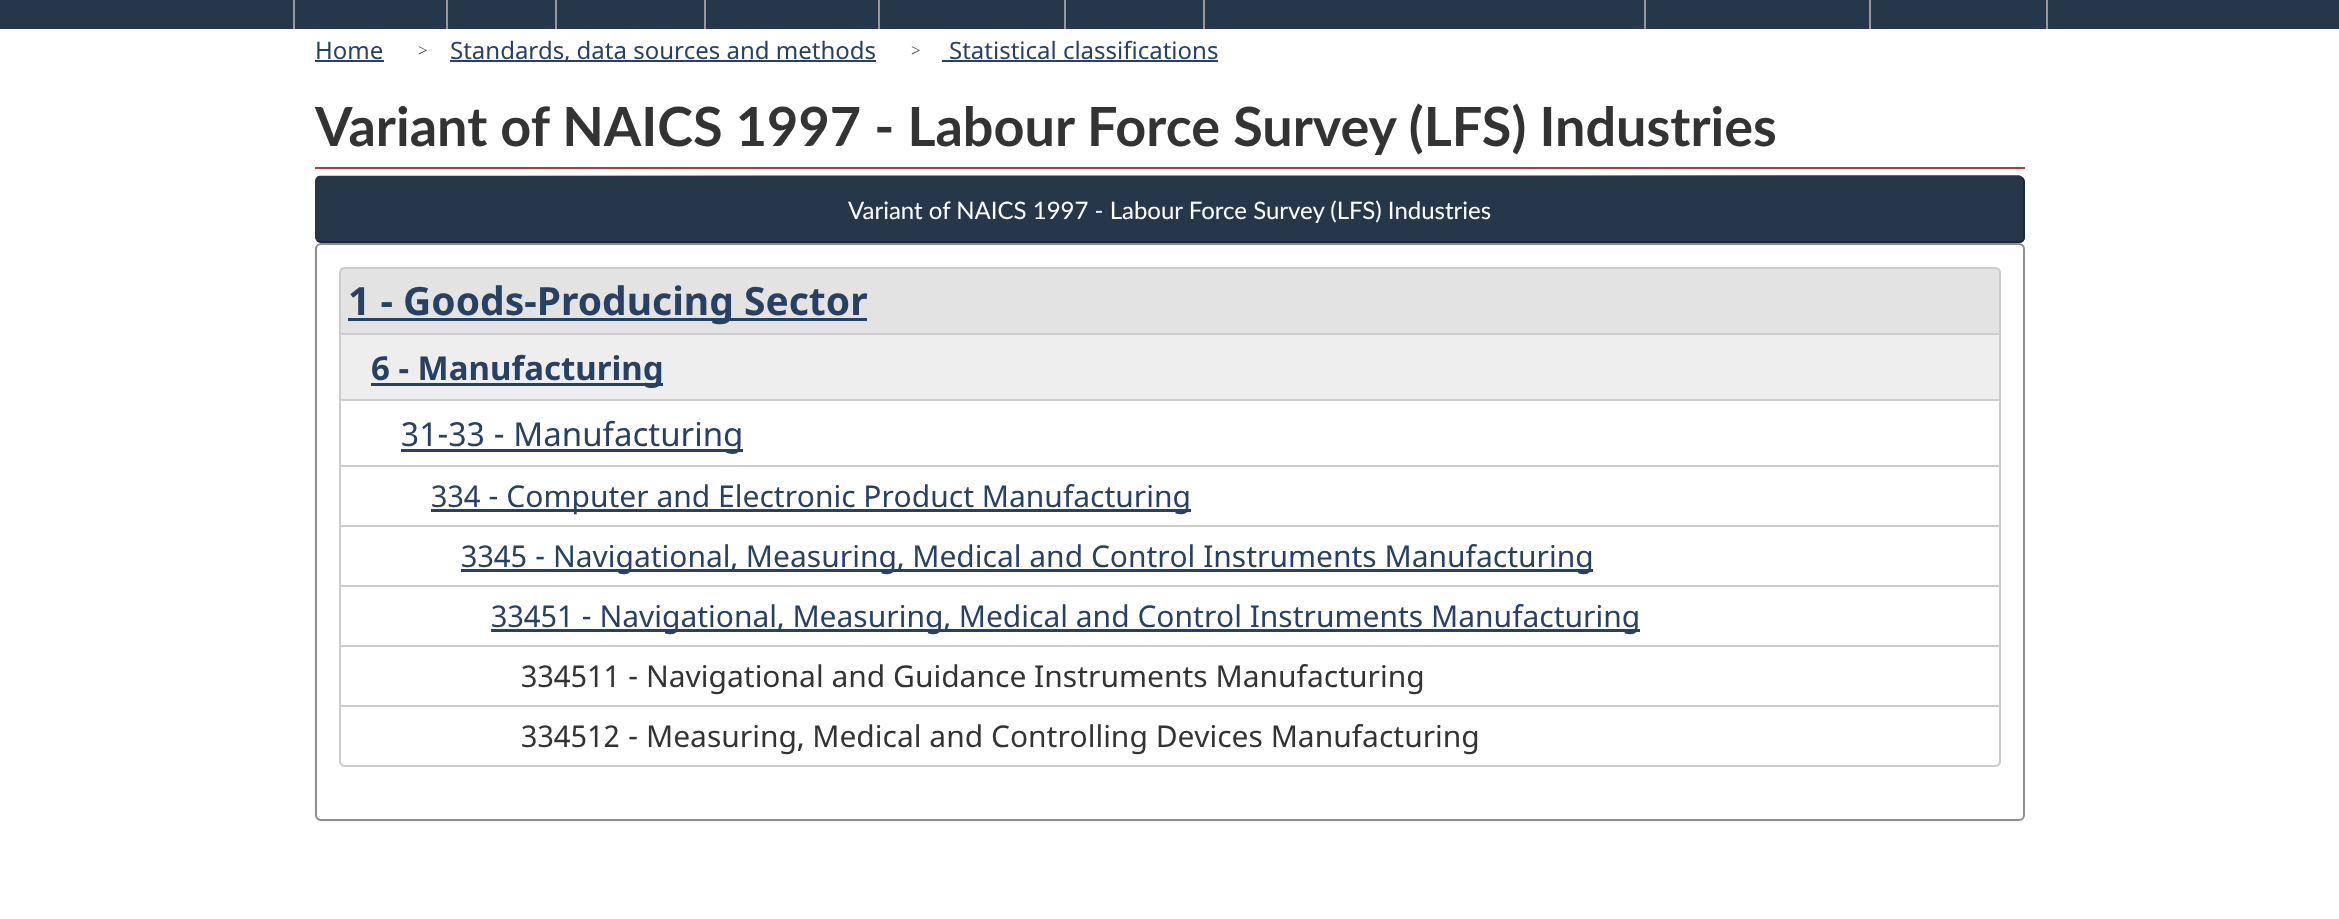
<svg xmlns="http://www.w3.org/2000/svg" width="2339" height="919">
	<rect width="100%" height="100%" fill="#FFFFFF" />
	<rect x="0" y="0" width="2339" height="29" fill="#26374A" />
	<rect x="293" y="0" width="2" height="29" fill="#999999" />
	<rect x="446" y="0" width="2" height="29" fill="#999999" />
	<rect x="555" y="0" width="2" height="29" fill="#999999" />
	<rect x="704" y="0" width="2" height="29" fill="#999999" />
	<rect x="878" y="0" width="2" height="29" fill="#999999" />
	<rect x="1064" y="0" width="2" height="29" fill="#999999" />
	<rect x="1203" y="0" width="2" height="29" fill="#999999" />
	<rect x="1644" y="0" width="2" height="29" fill="#999999" />
	<rect x="2046" y="0" width="2" height="29" fill="#999999" />
	<rect x="1869" y="0" width="2" height="29" fill="#999999" />
	<text x="315" y="59" font-family="Noto Sans" font-size="24" fill="#284162">Home</text>
	<rect x="315" y="60" width="69" height="2" fill="#284162" />
	<text x="418" y="56" font-family="Liberation Serif" font-size="17" fill="#333333">&gt;</text>
	<rect x="450" y="60" width="426" height="2" fill="#284162" />
	<text x="450" y="59" font-family="Noto Sans" font-size="24" fill="#284162">Standards, data sources and methods</text>
	<text x="911" y="56" font-family="Liberation Serif" font-size="17" fill="#333333">&gt;</text>
	<text x="949" y="59" font-family="Noto Sans" font-size="24" fill="#284162">Statistical classifications</text>
	<rect x="942" y="60" width="276" height="2" fill="#284162" />
	<rect x="315" y="167" width="1710" height="2" fill="#AF3C43" />
	<text x="315" y="146" font-family="Lato" font-size="54" font-weight="700" fill="#333333">Variant of NAICS 1997 - Labour Force Survey (LFS) Industries</text>
	<rect x="315" y="245" width="1710" height="577" rx="6" fill="#000000" fill-opacity="0.05" filter="blur(1px)" />
	<rect x="315" y="176" width="1710" height="67" rx="6" fill="#26374A" />
	<path d="M2022.5 178L2024 181V238.5C2023.5 240.5 2022 242 2020 242H321C319.5 242 318.5 241.5 317.5 240.5" fill="none" stroke="#192531" stroke-width="1.5" />
	<path d="M317.5 240.5L316 237.5V180C316.5 178 318 176.5 320 176.5L2019 176C2020.5 176.5 2021.5 177 2022.5 178" fill="none" stroke="#26374A" stroke-width="1.5" />
	<text x="848" y="219" font-family="Lato" font-size="24" fill="#FFFFFF">Variant of NAICS 1997 - Labour Force Survey (LFS) Industries</text>
	<rect x="316" y="244" width="1708" height="576" rx="5" fill="#FFFFFF" stroke="#8E8E8E" stroke-width="2" />
	<path d="M345 268H1995C1998 268 2000 270 2000 273V334H340V273C340 270 342 268 345 268Z" fill="#E3E3E3" stroke="#CCCCCC" stroke-width="2" />
	<rect x="348" y="318" width="519" height="3" fill="#284162" />
	<text x="348" y="315" font-family="Noto Sans" font-size="39" font-weight="700" fill="#284162">1 - Goods-Producing Sector</text>
	<rect x="340" y="334" width="1660" height="66" fill="#EEEEEE" stroke="#CCCCCC" stroke-width="2" />
	<rect x="371" y="383" width="292" height="3" fill="#284162" />
	<text x="371" y="380" font-family="Noto Sans" font-size="33" font-weight="700" fill="#284162">6 - Manufacturing</text>
	<rect x="340" y="400" width="1660" height="66" fill="none" stroke="#CCCCCC" stroke-width="2" />
	<rect x="401" y="449" width="342" height="3" fill="#284162" />
	<text x="401" y="446" font-family="Noto Sans" font-size="33" fill="#284162">31-33 - Manufacturing</text>
	<rect x="340" y="466" width="1660" height="60" fill="none" stroke="#CCCCCC" stroke-width="2" />
	<rect x="431" y="509" width="760" height="3" fill="#284162" />
	<text x="431" y="507" font-family="Noto Sans" font-size="30" fill="#284162">334 - Computer and Electronic Product Manufacturing</text>
	<rect x="340" y="526" width="1660" height="60" fill="none" stroke="#CCCCCC" stroke-width="2" />
	<rect x="461" y="569" width="1132" height="3" fill="#284162" />
	<text x="461" y="567" font-family="Noto Sans" font-size="30" fill="#284162">3345 - Navigational, Measuring, Medical and Control Instruments Manufacturing</text>
	<rect x="340" y="586" width="1660" height="60" fill="none" stroke="#CCCCCC" stroke-width="2" />
	<rect x="491" y="629" width="1149" height="3" fill="#284162" />
	<text x="491" y="627" font-family="Noto Sans" font-size="30" fill="#284162">33451 - Navigational, Measuring, Medical and Control Instruments Manufacturing</text>
	<rect x="340" y="646" width="1660" height="60" fill="none" stroke="#CCCCCC" stroke-width="2" />
	<text x="521" y="687" font-family="Noto Sans" font-size="30" fill="#333333">334511 - Navigational and Guidance Instruments Manufacturing</text>
	<path d="M340 706H2000V761C2000 764 1998 766 1995 766H345C342 766 340 764 340 761Z" fill="#FFFFFF" stroke="#CCCCCC" stroke-width="2" />
	<text x="521" y="747" font-family="Noto Sans" font-size="30" fill="#333333">334512 - Measuring, Medical and Controlling Devices Manufacturing</text>
</svg>
